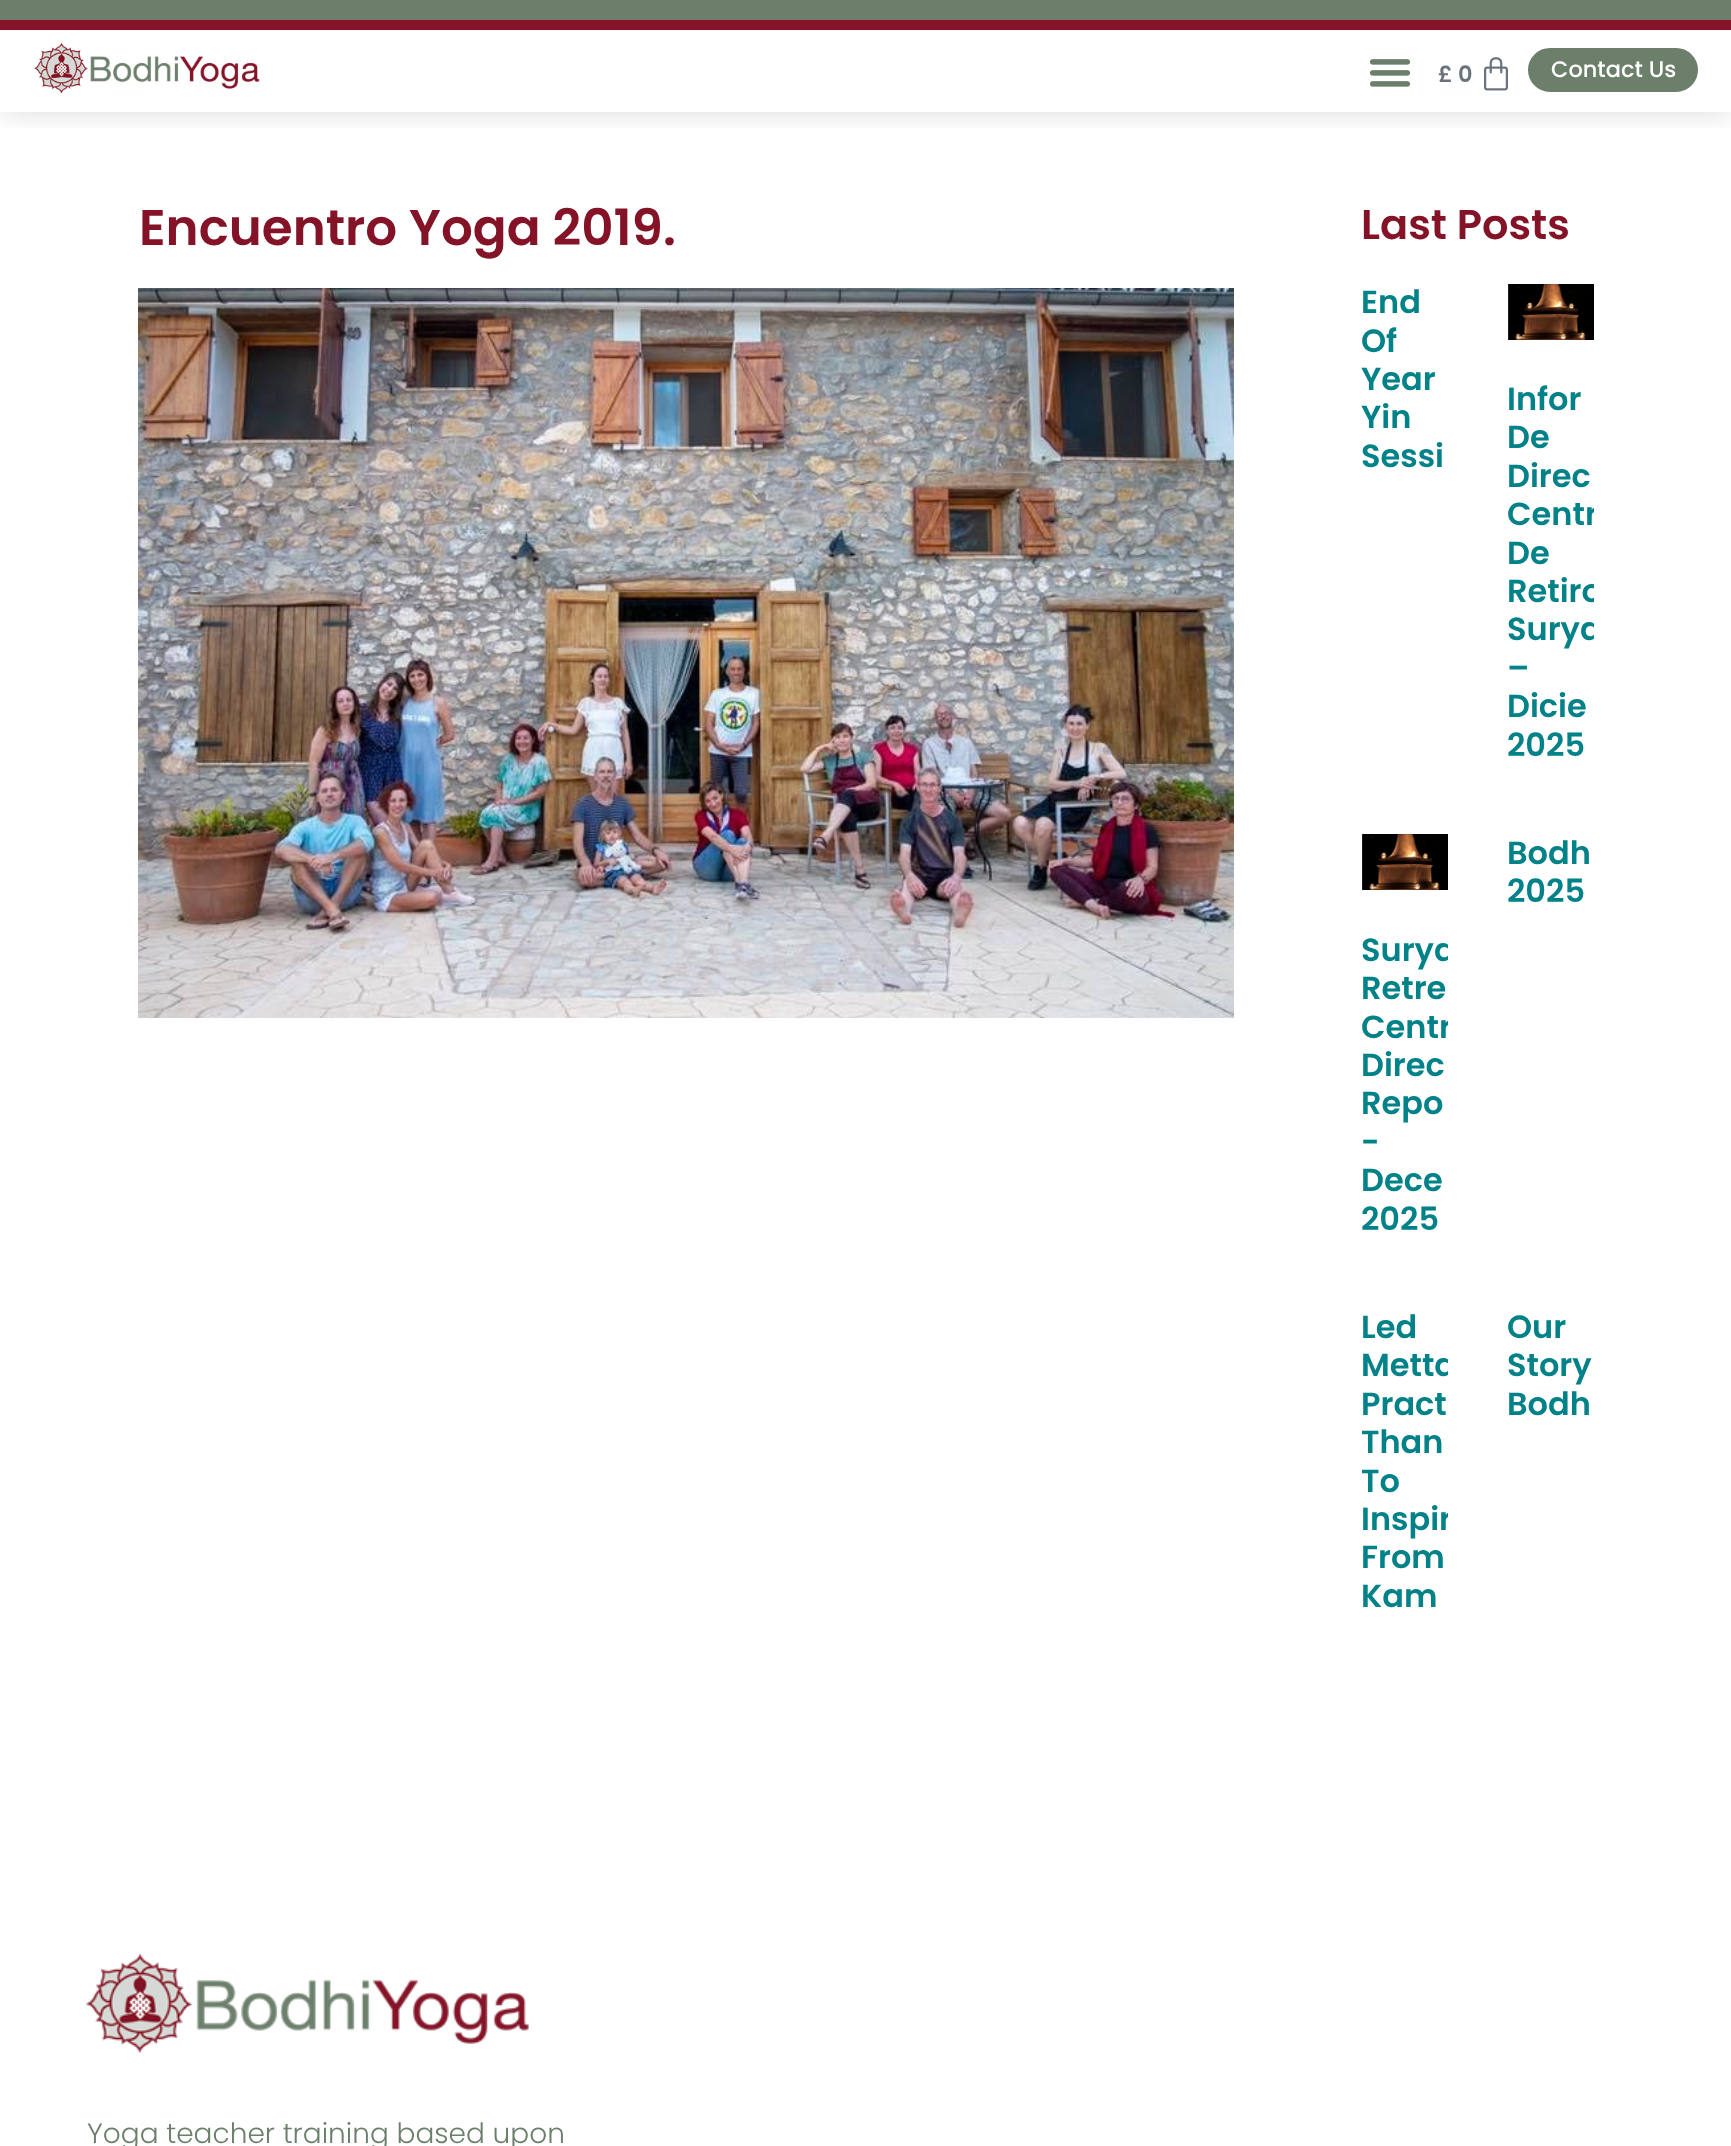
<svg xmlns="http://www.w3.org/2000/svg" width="1731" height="2146">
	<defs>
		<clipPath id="clip1"><rect x="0" y="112" width="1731" height="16" /></clipPath>
		<clipPath id="clip2"><rect x="1508" y="284" width="86" height="480" /></clipPath>
		<clipPath id="clip3"><rect x="1362" y="834" width="86" height="404" /></clipPath>
		<clipPath id="clip4"><rect x="1362" y="1308" width="86" height="308" /></clipPath>
	</defs>
	<rect width="100%" height="100%" fill="#FFFFFF" />
	<g clip-path="url(#clip1)">
		<rect x="0" y="0" width="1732" height="112" fill="#000000" fill-opacity="0.14" filter="blur(15px)" />
	</g>
	<rect x="0" y="0" width="1731" height="20" fill="#6B7F6B" />
	<rect x="0" y="20" width="1731" height="10" fill="#841327" />
	<image x="34" y="42" width="226" height="52" href="assets/img1.png" />
	<image x="1369" y="59" width="42" height="28" href="assets/img2.png" />
	<text x="1438" y="82" font-family="Poppins" font-size="22.5" font-weight="600" fill="#69727D">£ 0</text>
	<image x="1484" y="57" width="24" height="34" href="assets/img3.png" />
	<rect x="1529" y="49" width="168" height="42" rx="21" fill="#6B7F6B" stroke="#6B7F6B" stroke-width="2" />
	<text x="1551" y="77" font-family="Poppins" font-size="22.5" font-weight="500" fill="#FFFFFF">Contact Us</text>
	<text x="139" y="245" font-family="Poppins" font-size="50" font-weight="600" fill="#841327">Encuentro Yoga 2019.</text>
	<image x="138" y="288" width="1096" height="730" href="assets/img4.png" />
	<text x="1361" y="239" font-family="Poppins" font-size="41.5" font-weight="600" fill="#841327">Last Posts</text>
	<g font-family="Poppins" font-size="32" font-weight="600" fill="#018188">
		<text x="1361" y="313">End</text>
		<text x="1361" y="352">Of</text>
		<text x="1361" y="390">Year</text>
		<text x="1361" y="428">Yin</text>
		<text x="1361" y="467">Sessi</text>
	</g>
	<image x="1508" y="284" width="86" height="56" href="assets/img5.png" />
	<g font-family="Poppins" font-size="32" font-weight="600" fill="#018188">
		<text x="1507" y="410">Infor</text>
		<text x="1507" y="448">De</text>
		<text x="1507" y="487">Direc</text>
	</g>
	<g clip-path="url(#clip2)">
		<text x="1507" y="525" font-family="Poppins" font-size="32" font-weight="600" fill="#018188">Centr</text>
	</g>
	<text x="1507" y="564" font-family="Poppins" font-size="32" font-weight="600" fill="#018188">De</text>
	<g clip-path="url(#clip2)">
		<g font-family="Poppins" font-size="32" font-weight="600" fill="#018188">
			<text x="1507" y="602">Retiro</text>
			<text x="1507" y="640">Surya</text>
		</g>
	</g>
	<g font-family="Poppins" font-size="32" font-weight="600" fill="#018188">
		<text x="1507" y="679">–</text>
		<text x="1507" y="717">Dicie</text>
		<text x="1507" y="756">2025</text>
		<text x="1507" y="864">Bodh</text>
		<text x="1507" y="902">2025</text>
	</g>
	<image x="1362" y="834" width="86" height="56" href="assets/img5.png" />
	<g clip-path="url(#clip3)">
		<text x="1361" y="961" font-family="Poppins" font-size="32" font-weight="600" fill="#018188">Surya</text>
	</g>
	<text x="1361" y="999" font-family="Poppins" font-size="32" font-weight="600" fill="#018188">Retre</text>
	<g clip-path="url(#clip3)">
		<text x="1361" y="1038" font-family="Poppins" font-size="32" font-weight="600" fill="#018188">Centr</text>
	</g>
	<g font-family="Poppins" font-size="32" font-weight="600" fill="#018188">
		<text x="1361" y="1076">Direc</text>
		<text x="1361" y="1114">Repo</text>
		<text x="1361" y="1153">-</text>
		<text x="1361" y="1191">Dece</text>
		<text x="1361" y="1230">2025</text>
		<text x="1361" y="1338">Led</text>
	</g>
	<g clip-path="url(#clip4)">
		<text x="1361" y="1376" font-family="Poppins" font-size="32" font-weight="600" fill="#018188">Metta</text>
	</g>
	<g font-family="Poppins" font-size="32" font-weight="600" fill="#018188">
		<text x="1361" y="1415">Pract</text>
		<text x="1361" y="1453">Than</text>
		<text x="1361" y="1492">To</text>
	</g>
	<g clip-path="url(#clip4)">
		<text x="1361" y="1530" font-family="Poppins" font-size="32" font-weight="600" fill="#018188">Inspir</text>
	</g>
	<g font-family="Poppins" font-size="32" font-weight="600" fill="#018188">
		<text x="1361" y="1568">From</text>
		<text x="1361" y="1607">Kam</text>
		<text x="1507" y="1338">Our</text>
		<text x="1507" y="1376">Story</text>
		<text x="1507" y="1415">Bodh</text>
	</g>
	<image x="86" y="1953" width="443" height="100" href="assets/img6.png" />
	<text x="87" y="2143" font-family="Poppins" font-size="28" font-weight="300" fill="#6B7F6B">Yoga teacher training based upon</text>
</svg>
